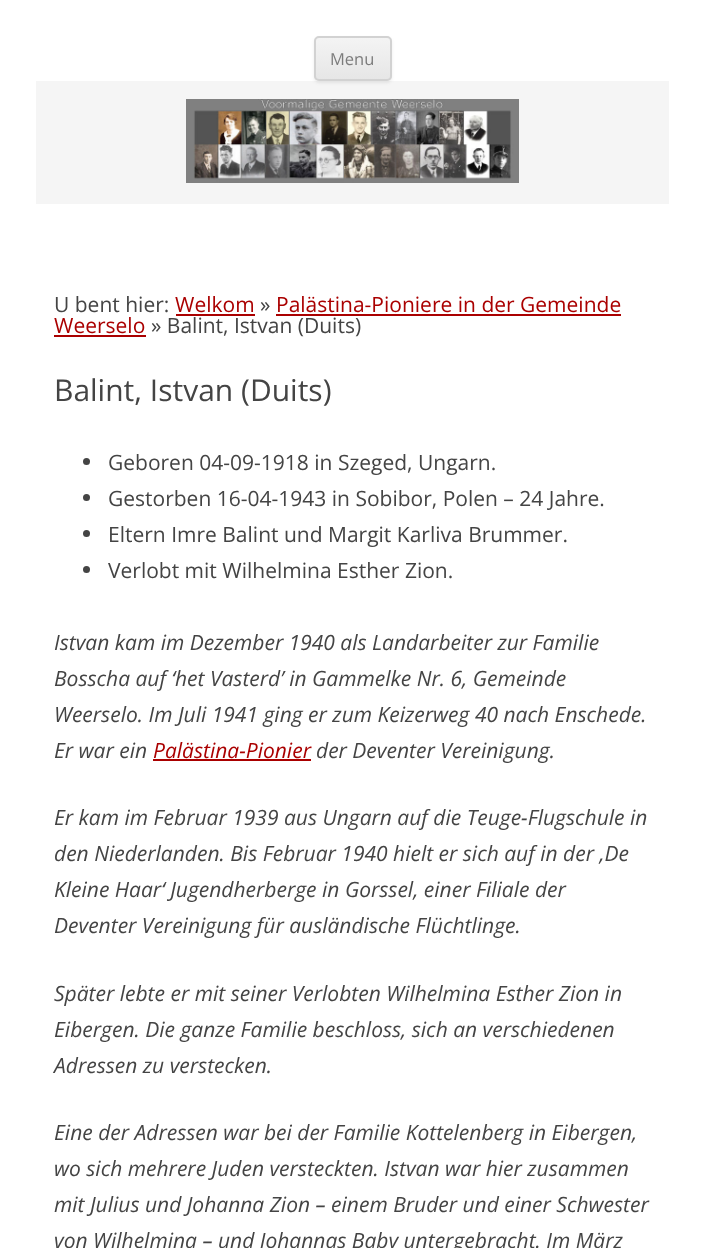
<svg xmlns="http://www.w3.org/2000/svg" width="705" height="1248">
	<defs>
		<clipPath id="clip1"><rect x="314" y="36" width="78" height="45" rx="5" /></clipPath>
		<linearGradient id="g1" gradientUnits="userSpaceOnUse" x1="353" y1="37" x2="353" y2="80"><stop offset="0" stop-color="#F4F4F4" /><stop offset="1" stop-color="#E6E6E6" /></linearGradient>
	</defs>
	<rect width="100%" height="100%" fill="#FFFFFF" />
	<rect x="36" y="81" width="633" height="123" fill="#F5F5F5" />
	<rect x="314" y="38" width="78" height="45" rx="5" fill="#404040" fill-opacity="0.1" filter="blur(1.5px)" />
	<g clip-path="url(#clip1)">
		<rect x="314" y="38" width="78" height="42" fill="url(#g1)" />
	</g>
	<rect x="315" y="37" width="76" height="43" rx="4" fill="none" stroke="#D2D2D2" stroke-width="2" />
	<text x="330" y="65" font-family="Open Sans" font-size="16.5" fill="#7C7C7C">Menu</text>
	<image x="186" y="99" width="333" height="84" href="assets/img1.png" />
	<text x="54" y="312" font-family="Open Sans" font-size="21" fill="#444444">U bent hier:</text>
	<text x="175" y="312" font-family="Open Sans" font-size="21" fill="#AA0000">Welkom</text>
	<rect x="176" y="314" width="79" height="2" fill="#AA0000" />
	<text x="260" y="312" font-family="Open Sans" font-size="21" fill="#444444">»</text>
	<text x="276" y="312" font-family="Open Sans" font-size="21" fill="#AA0000">Palästina-Pioniere in der Gemeinde</text>
	<rect x="276" y="314" width="345" height="2" fill="#AA0000" />
	<text x="54" y="333" font-family="Open Sans" font-size="21" fill="#AA0000">Weerselo</text>
	<rect x="54" y="335" width="92" height="2" fill="#AA0000" />
	<text x="151" y="333" font-family="Open Sans" font-size="21" fill="#444444">» Balint, Istvan (Duits)</text>
	<text x="54" y="401" font-family="Open Sans" font-size="30" fill="#444444">Balint, Istvan (Duits)</text>
	<circle cx="86.5" cy="461.5" r="3.5" fill="#444444" />
	<text x="108" y="470" font-family="Open Sans" font-size="21" fill="#444444">Geboren 04-09-1918 in Szeged, Ungarn.</text>
	<circle cx="86.5" cy="497.5" r="3.5" fill="#444444" />
	<text x="108" y="506" font-family="Open Sans" font-size="21" fill="#444444">Gestorben 16-04-1943 in Sobibor, Polen – 24 Jahre.</text>
	<circle cx="86.5" cy="533.5" r="3.5" fill="#444444" />
	<text x="108" y="542" font-family="Open Sans" font-size="21" fill="#444444">Eltern Imre Balint und Margit Karliva Brummer.</text>
	<circle cx="86.5" cy="569.5" r="3.5" fill="#444444" />
	<text x="108" y="578" font-family="Open Sans" font-size="21" fill="#444444">Verlobt mit Wilhelmina Esther Zion.</text>
	<g font-family="Open Sans" font-size="21" font-style="italic" fill="#444444">
		<text x="54" y="650">Istvan kam im Dezember 1940 als Landarbeiter zur Familie</text>
		<text x="54" y="686">Bosscha auf ‘het Vasterd’ in Gammelke Nr. 6, Gemeinde</text>
		<text x="54" y="722">Weerselo. Im Juli 1941 ging er zum Keizerweg 40 nach Enschede.</text>
		<text x="54" y="758">Er war ein</text>
	</g>
	<text x="153" y="758" font-family="Open Sans" font-size="21" font-style="italic" fill="#AA0000">Palästina-Pionier</text>
	<rect x="153" y="759" width="158" height="2" fill="#AA0000" />
	<g font-family="Open Sans" font-size="21" font-style="italic" fill="#444444">
		<text x="316" y="758">der Deventer Vereinigung.</text>
		<text x="54" y="825">Er kam im Februar 1939 aus Ungarn auf die Teuge-Flugschule in</text>
		<text x="54" y="861">den Niederlanden. Bis Februar 1940 hielt er sich auf in der ‚De</text>
		<text x="54" y="897">Kleine Haar‘ Jugendherberge in Gorssel, einer Filiale der</text>
		<text x="54" y="933">Deventer Vereinigung für ausländische Flüchtlinge.</text>
		<text x="54" y="1001">Später lebte er mit seiner Verlobten Wilhelmina Esther Zion in</text>
		<text x="54" y="1037">Eibergen. Die ganze Familie beschloss, sich an verschiedenen</text>
		<text x="54" y="1073">Adressen zu verstecken.</text>
		<text x="54" y="1140">Eine der Adressen war bei der Familie Kottelenberg in Eibergen,</text>
		<text x="54" y="1176">wo sich mehrere Juden versteckten. Istvan war hier zusammen</text>
		<text x="54" y="1212">mit Julius und Johanna Zion – einem Bruder und einer Schwester</text>
		<text x="54" y="1248">von Wilhelmina – und Johannas Baby untergebracht. Im März</text>
	</g>
</svg>
